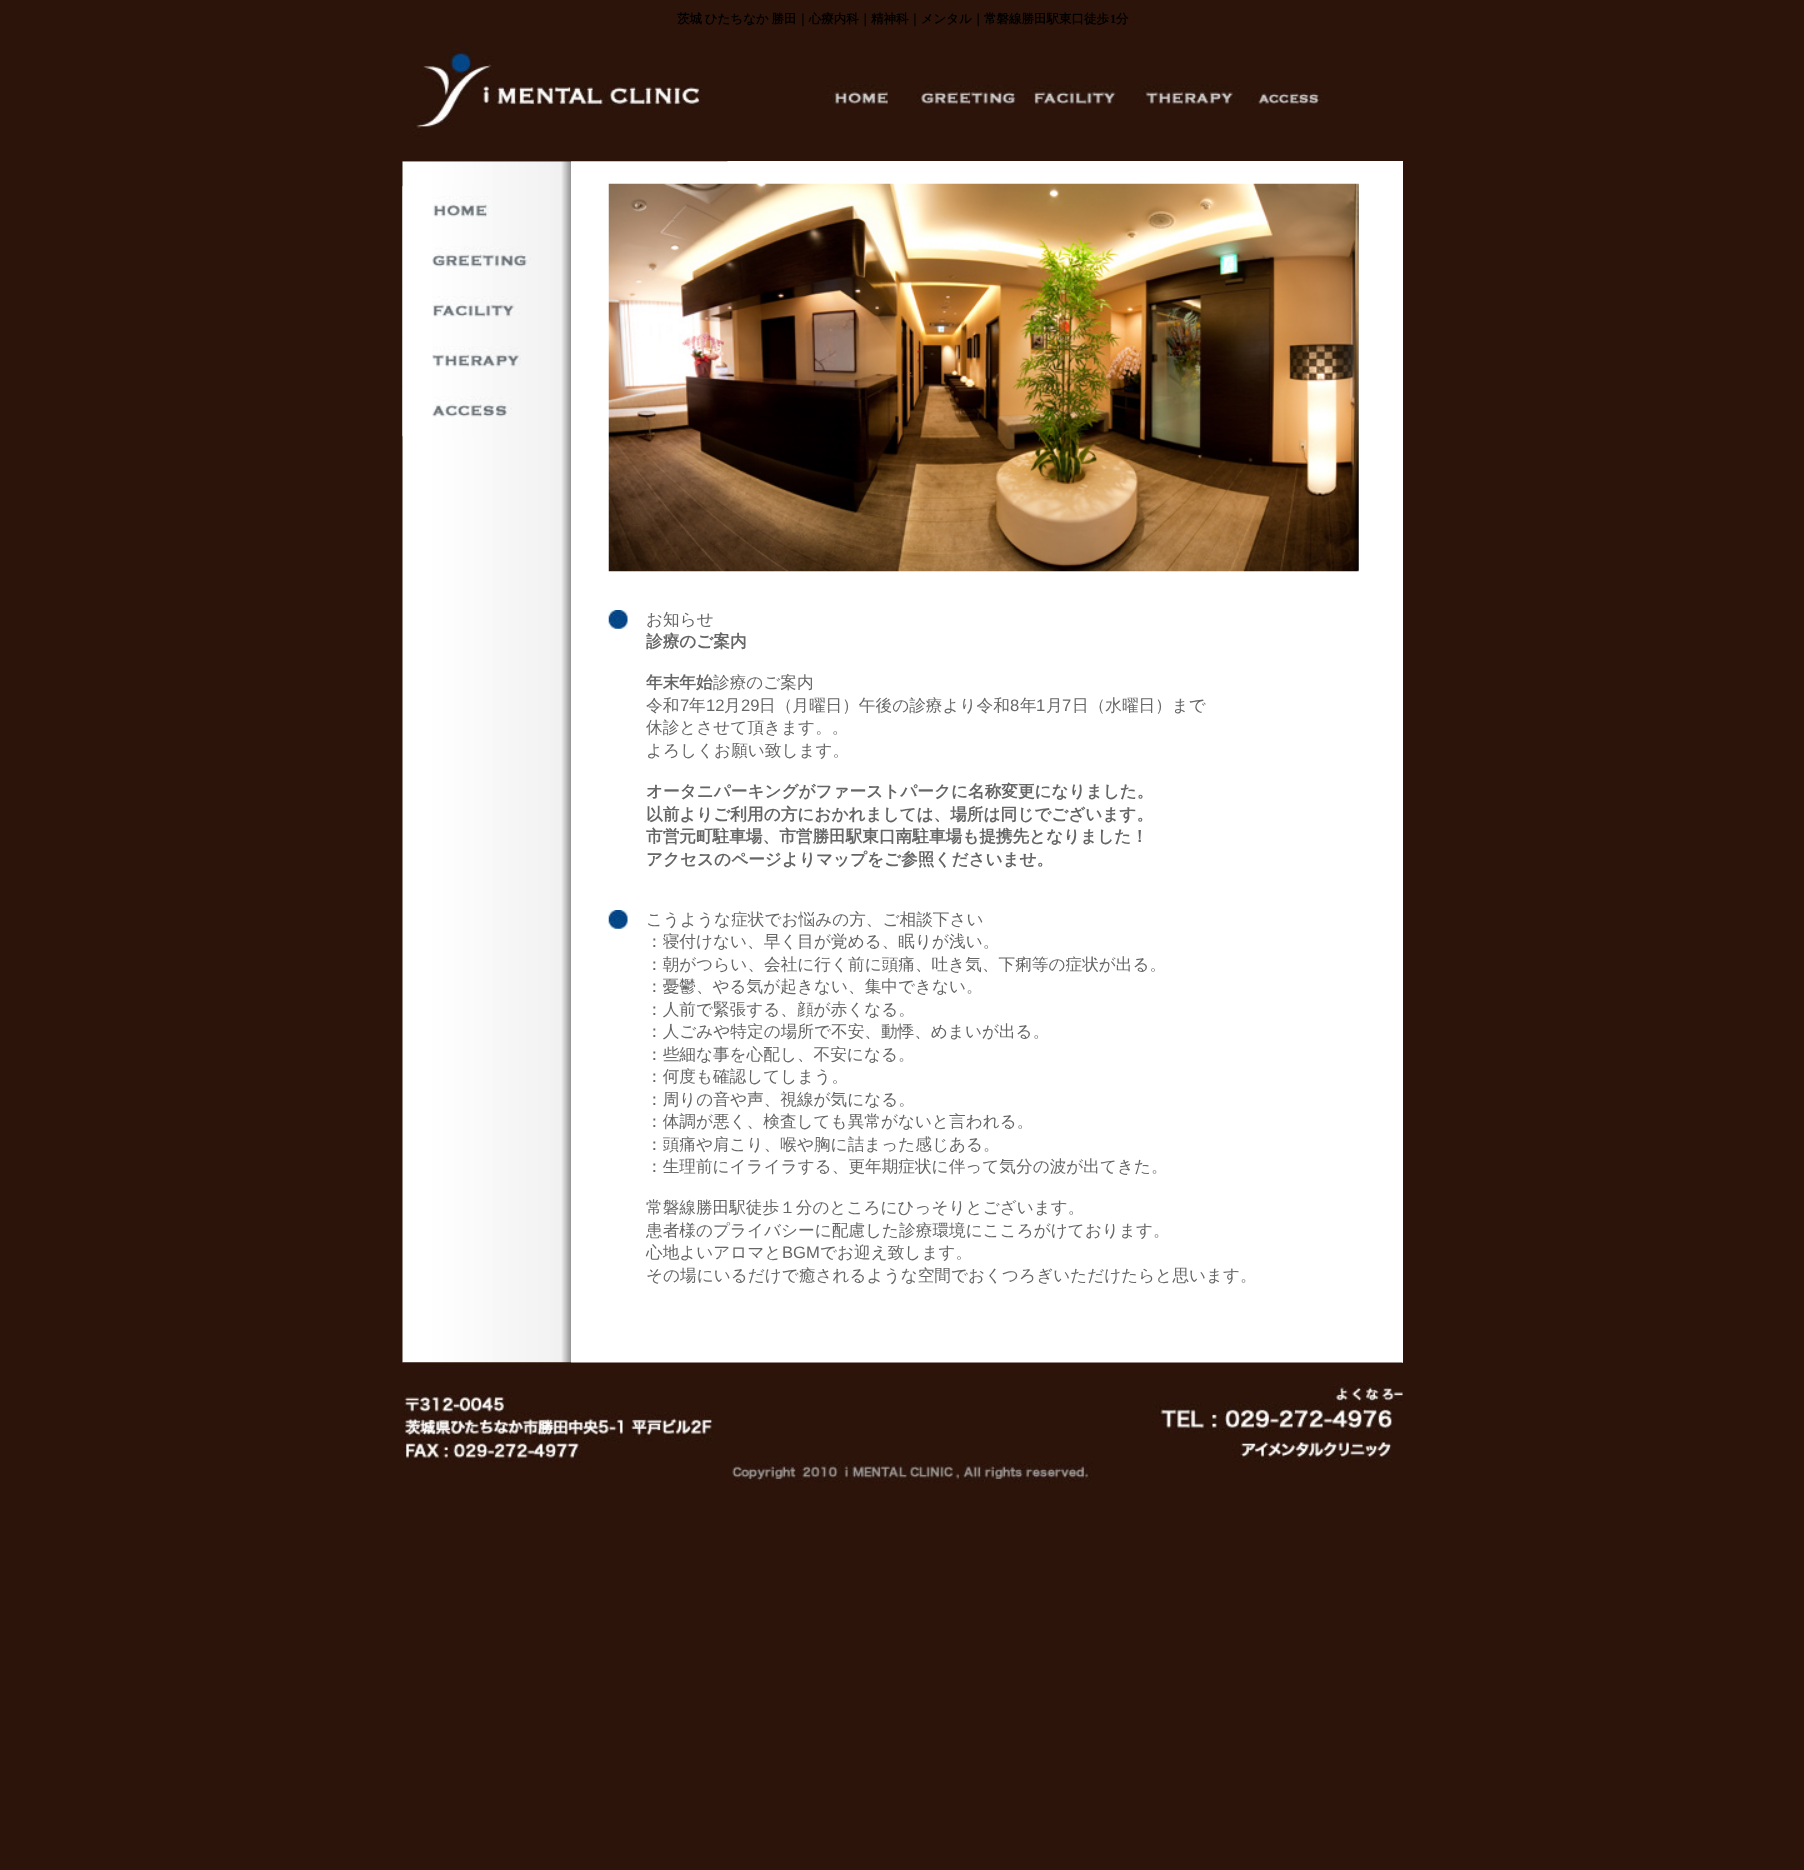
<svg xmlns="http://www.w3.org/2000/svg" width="1804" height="1870">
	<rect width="100%" height="100%" fill="#2C140B" />
	<text x="677" y="23" word-spacing="-1" font-family="WenQuanYi Zen Hei" font-size="12.5" font-weight="700" fill="#000000">茨城 ひたちなか 勝田｜心療内科｜精神科｜メンタル｜常磐線勝田駅東口徒歩</text>
	<text x="1110" y="23" font-family="Liberation Serif" font-size="12.5" font-weight="700" fill="#000000">1</text>
	<text x="1116" y="23" font-family="WenQuanYi Zen Hei" font-size="12.5" font-weight="700" fill="#000000">分</text>
	<image x="402" y="161" width="138" height="1202" href="assets/img7.png" />
	<image x="540" y="161" width="31" height="1202" href="assets/img13.png" />
	<rect x="571" y="161" width="832" height="1202" fill="#FFFFFF" />
	<image x="402" y="46" width="326" height="116" href="assets/img1.png" />
	<image x="827" y="84" width="61" height="20" href="assets/img2.png" />
	<image x="915" y="85" width="101" height="19" href="assets/img3.png" />
	<image x="1028" y="85" width="89" height="19" href="assets/img4.png" />
	<image x="1140" y="84" width="100" height="20" href="assets/img5.png" />
	<image x="1252" y="93" width="69" height="11" href="assets/img6.png" />
	<image x="402" y="186" width="88" height="51" href="assets/img8.png" />
	<image x="402" y="236" width="129" height="51" href="assets/img9.png" />
	<image x="402" y="286" width="118" height="51" href="assets/img10.png" />
	<image x="402" y="336" width="119" height="51" href="assets/img11.png" />
	<image x="402" y="386" width="110" height="51" href="assets/img12.png" />
	<image x="608" y="183" width="751" height="389" href="assets/img14.png" />
	<image x="608" y="610" width="20" height="19" href="assets/img15.png" />
	<text x="646" y="625" font-family="WenQuanYi Zen Hei" font-size="16.65" font-weight="500" fill="#666666">お知らせ</text>
	<g font-family="WenQuanYi Zen Hei" font-size="16.65" font-weight="700" fill="#666666">
		<text x="646" y="647">診療のご案内</text>
		<text x="646" y="688">年末年始</text>
	</g>
	<g font-family="WenQuanYi Zen Hei" font-size="16.65" font-weight="500" fill="#666666">
		<text x="713" y="688">診療のご案内</text>
		<text x="646" y="711">令和</text>
	</g>
	<text x="680" y="711" font-family="Liberation Sans" font-size="16.65" fill="#666666">7</text>
	<text x="689" y="711" font-family="WenQuanYi Zen Hei" font-size="16.65" font-weight="500" fill="#666666">年</text>
	<text x="706" y="711" font-family="Liberation Sans" font-size="16.65" fill="#666666">12</text>
	<text x="724" y="711" font-family="WenQuanYi Zen Hei" font-size="16.65" font-weight="500" fill="#666666">月</text>
	<text x="741" y="711" font-family="Liberation Sans" font-size="16.65" fill="#666666">29</text>
	<text x="759" y="711" font-family="WenQuanYi Zen Hei" font-size="16.65" font-weight="500" fill="#666666">日（月曜日）午後の診療より令和</text>
	<text x="1010" y="711" font-family="Liberation Sans" font-size="16.65" fill="#666666">8</text>
	<text x="1020" y="711" font-family="WenQuanYi Zen Hei" font-size="16.65" font-weight="500" fill="#666666">年</text>
	<text x="1036" y="711" font-family="Liberation Sans" font-size="16.65" fill="#666666">1</text>
	<text x="1046" y="711" font-family="WenQuanYi Zen Hei" font-size="16.65" font-weight="500" fill="#666666">月</text>
	<text x="1062" y="711" font-family="Liberation Sans" font-size="16.65" fill="#666666">7</text>
	<g font-family="WenQuanYi Zen Hei" font-size="16.65" font-weight="500" fill="#666666">
		<text x="1072" y="711">日（水曜日）まで</text>
		<text x="646" y="733">休診とさせて頂きます。。</text>
		<text x="646" y="756">よろしくお願い致します。</text>
	</g>
	<g font-family="WenQuanYi Zen Hei" font-size="16.65" font-weight="700" fill="#666666">
		<text x="646" y="797">オータニパーキングがファーストパークに名称変更になりました。</text>
		<text x="646" y="820">以前よりご利用の方におかれましては、場所は同じでございます。</text>
		<text x="646" y="842">市営元町駐車場、市営勝田駅東口南駐車場も提携先となりました！</text>
		<text x="646" y="865">アクセスのページよりマップをご参照くださいませ。</text>
	</g>
	<image x="608" y="910" width="20" height="19" href="assets/img15.png" />
	<g font-family="WenQuanYi Zen Hei" font-size="16.65" font-weight="500" fill="#666666">
		<text x="646" y="925">こうような症状でお悩みの方、ご相談下さい</text>
		<text x="646" y="947">：寝付けない、早く目が覚める、眠りが浅い。</text>
		<text x="646" y="970">：朝がつらい、会社に行く前に頭痛、吐き気、下痢等の症状が出る。</text>
		<text x="646" y="992">：憂鬱、やる気が起きない、集中できない。</text>
		<text x="646" y="1015">：人前で緊張する、顔が赤くなる。</text>
		<text x="646" y="1037">：人ごみや特定の場所で不安、動悸、めまいが出る。</text>
		<text x="646" y="1060">：些細な事を心配し、不安になる。</text>
		<text x="646" y="1082">：何度も確認してしまう。</text>
		<text x="646" y="1105">：周りの音や声、視線が気になる。</text>
		<text x="646" y="1127">：体調が悪く、検査しても異常がないと言われる。</text>
		<text x="646" y="1150">：頭痛や肩こり、喉や胸に詰まった感じある。</text>
		<text x="646" y="1172">：生理前にイライラする、更年期症状に伴って気分の波が出てきた。</text>
		<text x="646" y="1213">常磐線勝田駅徒歩１分のところにひっそりとございます。</text>
		<text x="646" y="1236">患者様のプライバシーに配慮した診療環境にこころがけております。</text>
		<text x="646" y="1258">心地よいアロマと</text>
	</g>
	<text x="782" y="1258" font-family="Liberation Sans" font-size="16.65" fill="#666666">BGM</text>
	<g font-family="WenQuanYi Zen Hei" font-size="16.65" font-weight="500" fill="#666666">
		<text x="820" y="1258">でお迎え致します。</text>
		<text x="646" y="1281">その場にいるだけで癒されるような空間でおくつろぎいただけたらと思います。</text>
	</g>
	<image x="402" y="1362" width="1001" height="121" href="assets/img16.png" />
</svg>
